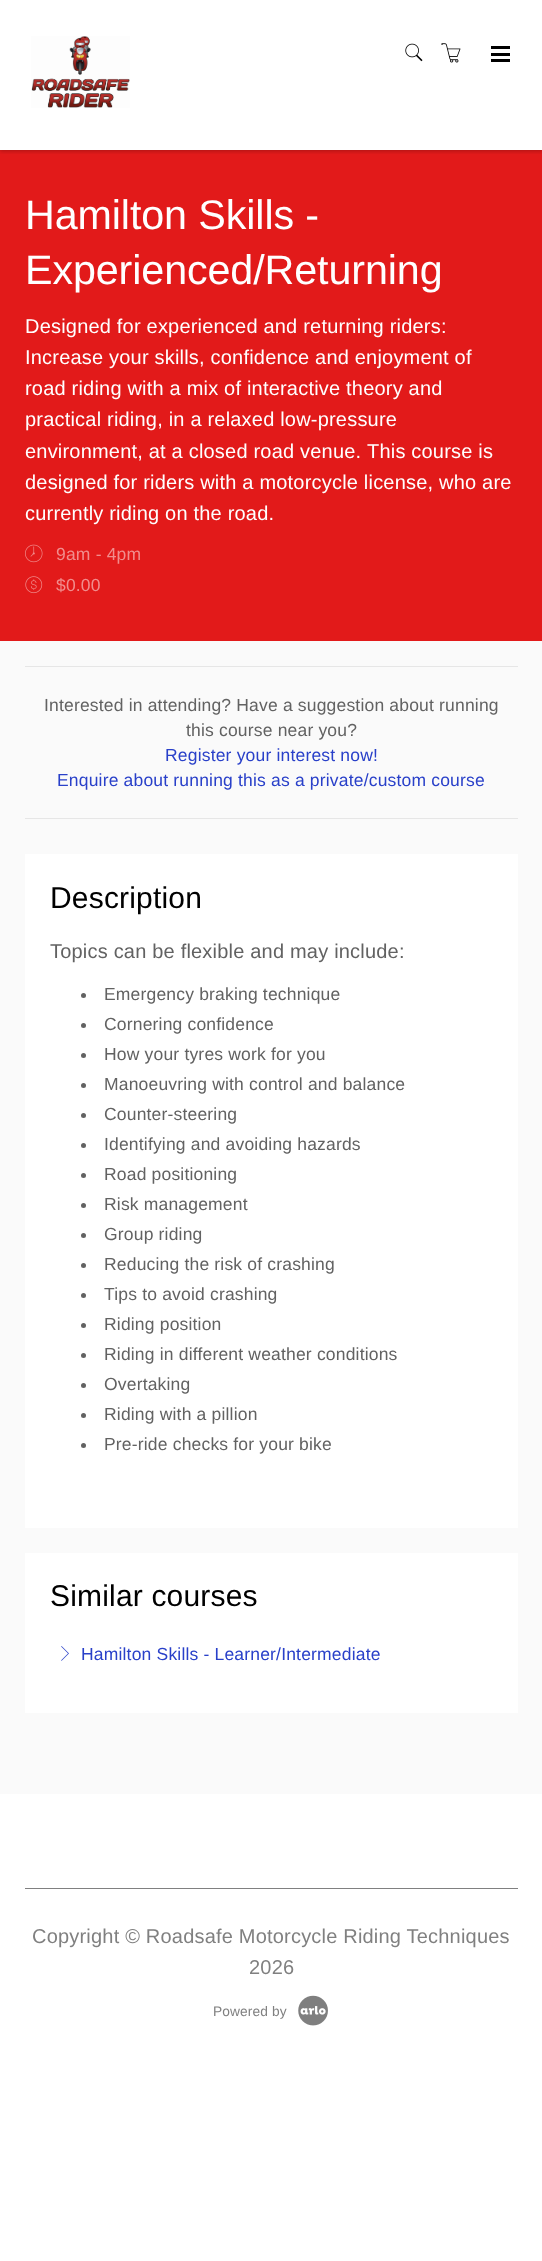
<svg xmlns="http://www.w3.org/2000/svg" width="542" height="2261">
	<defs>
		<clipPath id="clip1"><rect x="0" y="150" width="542" height="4" /></clipPath>
	</defs>
	<rect width="100%" height="100%" fill="#FFFFFF" />
	<rect x="0" y="150" width="542" height="491" fill="#E21A1A" />
	<g clip-path="url(#clip1)">
		<rect x="0" y="1" width="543" height="150" fill="#000000" fill-opacity="0.25" filter="blur(2px)" />
	</g>
	<image x="31" y="36" width="99" height="72" href="assets/img1.png" />
	<image x="405" y="43" width="18" height="19" href="assets/img2.png" />
	<image x="441" y="43" width="20" height="20" href="assets/img3.png" />
	<rect x="491" y="46" width="19" height="3" fill="#000000" />
	<rect x="491" y="53" width="19" height="3" fill="#000000" />
	<rect x="491" y="59" width="19" height="3" fill="#000000" />
	<g font-family="Liberation Sans" font-size="41.25" letter-spacing="-0.1" fill="#FFFFFF">
		<text x="25" y="229">Hamilton Skills -</text>
		<text x="25" y="284">Experienced/Returning</text>
	</g>
	<g font-family="Liberation Sans" font-size="20" letter-spacing="0.2" fill="#FFFFFF">
		<text x="25" y="333">Designed for experienced and returning riders:</text>
		<text x="25" y="364">Increase your skills, confidence and enjoyment of</text>
		<text x="25" y="395">road riding with a mix of interactive theory and</text>
		<text x="25" y="426">practical riding, in a relaxed low-pressure</text>
		<text x="25" y="458">environment, at a closed road venue.</text>
		<text x="367" y="458">This course is</text>
		<text x="25" y="489">designed for riders with a motorcycle license, who are</text>
		<text x="25" y="520">currently riding on the road.</text>
	</g>
	<image x="25" y="544" width="18" height="19" href="assets/img4.png" />
	<text x="56" y="560" font-family="Liberation Sans" font-size="17.5" letter-spacing="0.18" fill="#F18D8D">9am - 4pm</text>
	<image x="25" y="576" width="18" height="18" href="assets/img5.png" />
	<text x="56" y="591" font-family="Liberation Sans" font-size="17.5" letter-spacing="0.18" fill="#F18D8D">$0.00</text>
	<rect x="0" y="641" width="542" height="1153" fill="#FAFAFA" />
	<rect x="25" y="666" width="493" height="1" fill="#E6E6E6" />
	<rect x="25" y="818" width="493" height="1" fill="#E6E6E6" />
	<g font-family="Liberation Sans" font-size="17.5" letter-spacing="0.18" fill="#626262">
		<text x="44" y="711">Interested in attending? Have a suggestion about running</text>
		<text x="186" y="736">this course near you?</text>
	</g>
	<g font-family="Liberation Sans" font-size="17.5" letter-spacing="0.18" fill="#2940C9">
		<text x="165" y="761">Register your interest now!</text>
		<text x="57" y="786">Enquire about running this as a private/custom course</text>
	</g>
	<rect x="25" y="854" width="493" height="674" fill="#FFFFFF" />
	<text x="50" y="908" font-family="Liberation Sans" font-size="30" letter-spacing="0.18" fill="#000000">Description</text>
	<text x="50" y="958" font-family="Liberation Sans" font-size="20" letter-spacing="0.2" fill="#626262">Topics can be flexible and may include:</text>
	<circle cx="83.5" cy="995.5" r="2.5" fill="#626262" />
	<text x="104" y="1000" font-family="Liberation Sans" font-size="17.5" letter-spacing="0.18" fill="#626262">Emergency braking technique</text>
	<circle cx="83.5" cy="1025.5" r="2.5" fill="#626262" />
	<text x="104" y="1030" font-family="Liberation Sans" font-size="17.5" letter-spacing="0.18" fill="#626262">Cornering confidence</text>
	<circle cx="83.5" cy="1055.5" r="2.5" fill="#626262" />
	<text x="104" y="1060" font-family="Liberation Sans" font-size="17.5" letter-spacing="0.18" fill="#626262">How your tyres work for you</text>
	<circle cx="83.5" cy="1085.5" r="2.5" fill="#626262" />
	<text x="104" y="1090" font-family="Liberation Sans" font-size="17.5" letter-spacing="0.18" fill="#626262">Manoeuvring with control and balance</text>
	<circle cx="83.5" cy="1115.5" r="2.5" fill="#626262" />
	<text x="104" y="1120" font-family="Liberation Sans" font-size="17.5" letter-spacing="0.18" fill="#626262">Counter-steering</text>
	<circle cx="83.5" cy="1145.5" r="2.5" fill="#626262" />
	<text x="104" y="1150" font-family="Liberation Sans" font-size="17.5" letter-spacing="0.18" fill="#626262">Identifying and avoiding hazards</text>
	<circle cx="83.5" cy="1175.5" r="2.5" fill="#626262" />
	<text x="104" y="1180" font-family="Liberation Sans" font-size="17.5" letter-spacing="0.18" fill="#626262">Road positioning</text>
	<circle cx="83.5" cy="1205.5" r="2.5" fill="#626262" />
	<text x="104" y="1210" font-family="Liberation Sans" font-size="17.5" letter-spacing="0.18" fill="#626262">Risk management</text>
	<circle cx="83.5" cy="1235.5" r="2.5" fill="#626262" />
	<text x="104" y="1240" font-family="Liberation Sans" font-size="17.5" letter-spacing="0.18" fill="#626262">Group riding</text>
	<circle cx="83.5" cy="1265.5" r="2.5" fill="#626262" />
	<text x="104" y="1270" font-family="Liberation Sans" font-size="17.5" letter-spacing="0.18" fill="#626262">Reducing the risk of crashing</text>
	<circle cx="83.5" cy="1295.5" r="2.5" fill="#626262" />
	<text x="104" y="1300" font-family="Liberation Sans" font-size="17.5" letter-spacing="0.18" fill="#626262">Tips to avoid crashing</text>
	<circle cx="83.5" cy="1325.5" r="2.5" fill="#626262" />
	<text x="104" y="1330" font-family="Liberation Sans" font-size="17.5" letter-spacing="0.18" fill="#626262">Riding position</text>
	<circle cx="83.5" cy="1355.5" r="2.5" fill="#626262" />
	<text x="104" y="1360" font-family="Liberation Sans" font-size="17.5" letter-spacing="0.18" fill="#626262">Riding in different weather conditions</text>
	<circle cx="83.5" cy="1385.5" r="2.5" fill="#626262" />
	<text x="104" y="1390" font-family="Liberation Sans" font-size="17.5" letter-spacing="0.18" fill="#626262">Overtaking</text>
	<circle cx="83.5" cy="1415.5" r="2.5" fill="#626262" />
	<text x="104" y="1420" font-family="Liberation Sans" font-size="17.5" letter-spacing="0.18" fill="#626262">Riding with a pillion</text>
	<circle cx="83.5" cy="1445.5" r="2.5" fill="#626262" />
	<text x="104" y="1450" font-family="Liberation Sans" font-size="17.5" letter-spacing="0.18" fill="#626262">Pre-ride checks for your bike</text>
	<rect x="25" y="1553" width="493" height="160" fill="#FFFFFF" />
	<text x="50" y="1606" font-family="Liberation Sans" font-size="30" letter-spacing="0.18" fill="#000000">Similar courses</text>
	<image x="61" y="1646" width="8" height="15" href="assets/img6.png" />
	<text x="81" y="1660" font-family="Liberation Sans" font-size="17.5" letter-spacing="0.18" fill="#2940C9">Hamilton Skills - Learner/Intermediate</text>
	<rect x="25" y="1888" width="493" height="1" fill="#808080" />
	<g font-family="Liberation Sans" font-size="20" letter-spacing="0.2" fill="#808080">
		<text x="32" y="1943">Copyright © Roadsafe Motorcycle Riding Techniques</text>
		<text x="249" y="1974">2026</text>
	</g>
	<text x="213" y="2016" font-family="Liberation Sans" font-size="13.75" letter-spacing="0.1" fill="#808080">Powered by</text>
	<image x="298" y="1995" width="30" height="31" href="assets/img7.png" />
</svg>
